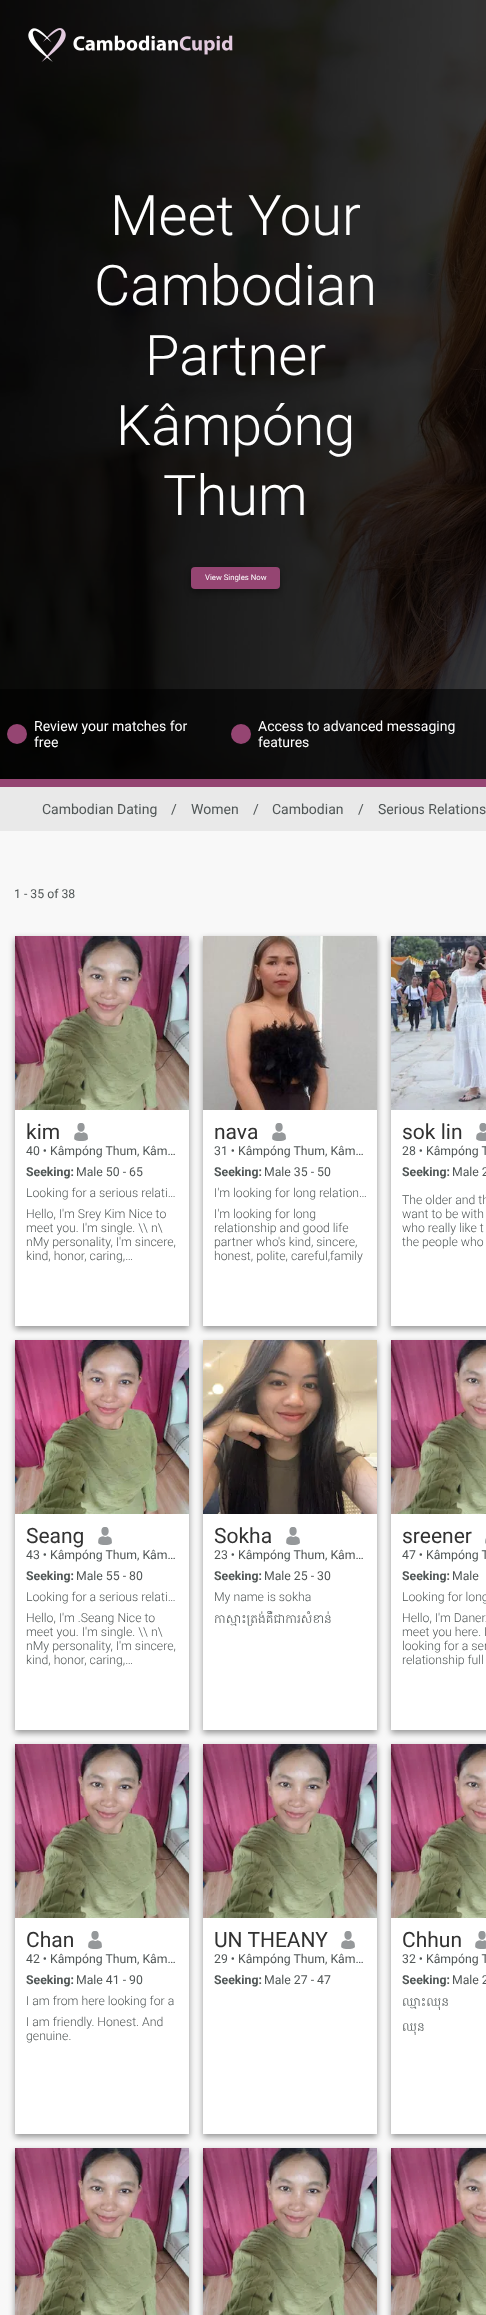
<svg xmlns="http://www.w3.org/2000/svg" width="486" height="2315">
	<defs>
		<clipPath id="clip1"><rect x="402" y="1994" width="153" height="18" /></clipPath>
		<clipPath id="clip2"><rect x="402" y="2019" width="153" height="18" /></clipPath>
	</defs>
	<rect width="100%" height="100%" fill="#F8F8F8" />
	<image x="0" y="0" width="486" height="779" href="assets/img3.png" />
	<image x="28" y="28" width="38" height="34" href="assets/img1.png" />
	<image x="73" y="35" width="160" height="20" href="assets/img2.png" />
	<g font-family="Roboto" font-size="56" font-weight="300" fill="#FFFFFF">
		<text x="110" y="235">Meet Your</text>
		<text x="94" y="305">Cambodian</text>
		<text x="145" y="375">Partner</text>
		<text x="116" y="445">Kâmpóng</text>
		<text x="163" y="515">Thum</text>
	</g>
	<rect x="191" y="570" width="89" height="22" rx="4" fill="#000000" fill-opacity="0.4" filter="blur(3px)" />
	<rect x="191" y="567" width="89" height="22" rx="4" fill="#954572" />
	<text x="205" y="580" font-family="Roboto" font-size="7.75" fill="#FFFFFF">View Singles Now</text>
	<rect x="0" y="689" width="486" height="90" fill="#000000" fill-opacity="0.6" />
	<circle cx="17" cy="734" r="10" fill="#954572" />
	<g font-family="Roboto" font-size="14" fill="#FFFFFF">
		<text x="34" y="731">Review your matches for</text>
		<text x="34" y="747">free</text>
	</g>
	<circle cx="241" cy="734" r="10" fill="#954572" />
	<g font-family="Roboto" font-size="14" fill="#FFFFFF">
		<text x="258" y="731">Access to advanced messaging</text>
		<text x="258" y="747">features</text>
	</g>
	<rect x="0" y="779" width="486" height="8" fill="#954572" />
	<rect x="0" y="787" width="486" height="44" fill="#E9E9E9" />
	<g font-family="Roboto" font-size="14" fill="#505656">
		<text x="42" y="814">Cambodian Dating</text>
		<text x="171" y="814">/</text>
		<text x="191" y="814">Women</text>
		<text x="253" y="814">/</text>
		<text x="272" y="814">Cambodian</text>
		<text x="358" y="814">/</text>
		<text x="378" y="814">Serious Relations</text>
	</g>
	<text x="14" y="898" font-family="Roboto" font-size="12.25" fill="#505656">1 - 35 of 38</text>
	<rect x="15" y="939" width="174" height="390" fill="#000000" fill-opacity="0.4" filter="blur(3px)" />
	<rect x="15" y="1110" width="174" height="216" fill="#FFFFFF" />
	<image x="15" y="936" width="174" height="174" href="assets/img4.png" />
	<text x="26" y="1139" font-family="Roboto" font-size="21" fill="#323232">kim</text>
	<image x="74" y="1123" width="14" height="18" href="assets/img5.png" />
	<text x="26" y="1155" font-family="Roboto" font-size="12.25" fill="#505656">40 • Kâmpóng Thum, Kâm…</text>
	<text x="26" y="1176" font-family="Roboto" font-size="12.25" font-weight="700" fill="#505656">Seeking:</text>
	<text x="76" y="1176" font-family="Roboto" font-size="12.25" fill="#505656">Male 50 - 65</text>
	<g font-family="Roboto" font-size="12.25" font-weight="300" fill="#505656">
		<text x="26" y="1197">Looking for a serious relati…</text>
		<text x="26" y="1218">Hello, I'm Srey Kim Nice to</text>
		<text x="26" y="1232">meet you. I'm single. \\ n\</text>
		<text x="26" y="1246">nMy personality, I'm sincere,</text>
		<text x="26" y="1260">kind, honor, caring,…</text>
	</g>
	<rect x="203" y="939" width="174" height="390" fill="#000000" fill-opacity="0.4" filter="blur(3px)" />
	<rect x="203" y="1110" width="174" height="216" fill="#FFFFFF" />
	<image x="203" y="936" width="174" height="174" href="assets/img6.png" />
	<text x="214" y="1139" font-family="Roboto" font-size="21" fill="#323232">nava</text>
	<image x="272" y="1123" width="14" height="18" href="assets/img5.png" />
	<text x="214" y="1155" font-family="Roboto" font-size="12.25" fill="#505656">31 • Kâmpóng Thum, Kâm…</text>
	<text x="214" y="1176" font-family="Roboto" font-size="12.25" font-weight="700" fill="#505656">Seeking:</text>
	<text x="264" y="1176" font-family="Roboto" font-size="12.25" fill="#505656">Male 35 - 50</text>
	<g font-family="Roboto" font-size="12.25" font-weight="300" fill="#505656">
		<text x="214" y="1197">I'm looking for long relation…</text>
		<text x="214" y="1218">I'm looking for long</text>
		<text x="214" y="1232">relationship and good life</text>
		<text x="214" y="1246">partner who's kind, sincere,</text>
		<text x="214" y="1260">honest, polite, careful,family</text>
	</g>
	<rect x="391" y="939" width="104" height="390" fill="#000000" fill-opacity="0.4" filter="blur(3px)" />
	<rect x="391" y="1110" width="95" height="216" fill="#FFFFFF" />
	<image x="391" y="936" width="95" height="174" href="assets/img7.png" />
	<text x="402" y="1139" font-family="Roboto" font-size="21" fill="#323232">sok lin</text>
	<image x="476" y="1123" width="10" height="18" href="assets/img8.png" />
	<text x="402" y="1155" font-family="Roboto" font-size="12.25" fill="#505656">28 • Kâmpóng T</text>
	<text x="402" y="1176" font-family="Roboto" font-size="12.25" font-weight="700" fill="#505656">Seeking:</text>
	<text x="452" y="1176" font-family="Roboto" font-size="12.25" fill="#505656">Male 2</text>
	<g font-family="Roboto" font-size="12.25" font-weight="300" fill="#505656">
		<text x="402" y="1204">The older and th</text>
		<text x="402" y="1218">want to be with</text>
		<text x="402" y="1232">who really like t</text>
		<text x="402" y="1246">the people who</text>
	</g>
	<rect x="15" y="1343" width="174" height="390" fill="#000000" fill-opacity="0.4" filter="blur(3px)" />
	<rect x="15" y="1514" width="174" height="216" fill="#FFFFFF" />
	<image x="15" y="1340" width="174" height="174" href="assets/img9.png" />
	<text x="26" y="1543" font-family="Roboto" font-size="21" fill="#323232">Seang</text>
	<image x="98" y="1527" width="14" height="18" href="assets/img5.png" />
	<text x="26" y="1559" font-family="Roboto" font-size="12.25" fill="#505656">43 • Kâmpóng Thum, Kâm…</text>
	<text x="26" y="1580" font-family="Roboto" font-size="12.25" font-weight="700" fill="#505656">Seeking:</text>
	<text x="76" y="1580" font-family="Roboto" font-size="12.25" fill="#505656">Male 55 - 80</text>
	<g font-family="Roboto" font-size="12.25" font-weight="300" fill="#505656">
		<text x="26" y="1601">Looking for a serious relati…</text>
		<text x="26" y="1622">Hello, I'm .Seang Nice to</text>
		<text x="26" y="1636">meet you. I'm single. \\ n\</text>
		<text x="26" y="1650">nMy personality, I'm sincere,</text>
		<text x="26" y="1664">kind, honor, caring,…</text>
	</g>
	<rect x="203" y="1343" width="174" height="390" fill="#000000" fill-opacity="0.4" filter="blur(3px)" />
	<rect x="203" y="1514" width="174" height="216" fill="#FFFFFF" />
	<image x="203" y="1340" width="174" height="174" href="assets/img10.png" />
	<text x="214" y="1543" font-family="Roboto" font-size="21" fill="#323232">Sokha</text>
	<image x="286" y="1527" width="14" height="18" href="assets/img5.png" />
	<text x="214" y="1559" font-family="Roboto" font-size="12.25" fill="#505656">23 • Kâmpóng Thum, Kâm…</text>
	<text x="214" y="1580" font-family="Roboto" font-size="12.25" font-weight="700" fill="#505656">Seeking:</text>
	<text x="264" y="1580" font-family="Roboto" font-size="12.25" fill="#505656">Male 25 - 30</text>
	<text x="214" y="1601" font-family="Roboto" font-size="12.25" font-weight="300" fill="#505656">My name is sokha</text>
	<text x="214" y="1623" font-family="Hanuman" font-size="12.25" font-weight="300" fill="#505656">កាស្មោះត្រង់គឺជាការសំខាន់</text>
	<rect x="391" y="1343" width="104" height="390" fill="#000000" fill-opacity="0.4" filter="blur(3px)" />
	<rect x="391" y="1514" width="95" height="216" fill="#FFFFFF" />
	<image x="391" y="1340" width="95" height="174" href="assets/img11.png" />
	<text x="402" y="1543" font-family="Roboto" font-size="21" fill="#323232">sreener</text>
	<image x="485" y="1538" width="1" height="6" href="assets/img12.png" />
	<text x="402" y="1559" font-family="Roboto" font-size="12.25" fill="#505656">47 • Kâmpóng T</text>
	<text x="402" y="1580" font-family="Roboto" font-size="12.25" font-weight="700" fill="#505656">Seeking:</text>
	<text x="452" y="1580" font-family="Roboto" font-size="12.25" fill="#505656">Male</text>
	<g font-family="Roboto" font-size="12.25" font-weight="300" fill="#505656">
		<text x="402" y="1601">Looking for long</text>
		<text x="402" y="1622">Hello, I'm Daner.</text>
		<text x="402" y="1636">meet you here. I</text>
		<text x="402" y="1650">looking for a ser</text>
		<text x="402" y="1664">relationship full</text>
	</g>
	<rect x="15" y="1747" width="174" height="390" fill="#000000" fill-opacity="0.4" filter="blur(3px)" />
	<rect x="15" y="1918" width="174" height="216" fill="#FFFFFF" />
	<image x="15" y="1744" width="174" height="174" href="assets/img4.png" />
	<text x="26" y="1947" font-family="Roboto" font-size="21" fill="#323232">Chan</text>
	<image x="88" y="1931" width="14" height="18" href="assets/img5.png" />
	<text x="26" y="1963" font-family="Roboto" font-size="12.25" fill="#505656">42 • Kâmpóng Thum, Kâm…</text>
	<text x="26" y="1984" font-family="Roboto" font-size="12.25" font-weight="700" fill="#505656">Seeking:</text>
	<text x="76" y="1984" font-family="Roboto" font-size="12.25" fill="#505656">Male 41 - 90</text>
	<g font-family="Roboto" font-size="12.25" font-weight="300" fill="#505656">
		<text x="26" y="2005">I am from here looking for a</text>
		<text x="26" y="2026">I am friendly. Honest. And</text>
		<text x="26" y="2040">genuine.</text>
	</g>
	<rect x="203" y="1747" width="174" height="390" fill="#000000" fill-opacity="0.4" filter="blur(3px)" />
	<rect x="203" y="1918" width="174" height="216" fill="#FFFFFF" />
	<image x="203" y="1744" width="174" height="174" href="assets/img13.png" />
	<text x="214" y="1947" font-family="Roboto" font-size="21" fill="#323232">UN THEANY</text>
	<image x="341" y="1931" width="14" height="18" href="assets/img5.png" />
	<text x="214" y="1963" font-family="Roboto" font-size="12.25" fill="#505656">29 • Kâmpóng Thum, Kâm…</text>
	<text x="214" y="1984" font-family="Roboto" font-size="12.25" font-weight="700" fill="#505656">Seeking:</text>
	<text x="264" y="1984" font-family="Roboto" font-size="12.25" fill="#505656">Male 27 - 47</text>
	<rect x="391" y="1747" width="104" height="390" fill="#000000" fill-opacity="0.4" filter="blur(3px)" />
	<rect x="391" y="1918" width="95" height="216" fill="#FFFFFF" />
	<image x="391" y="1744" width="95" height="174" href="assets/img11.png" />
	<text x="402" y="1947" font-family="Roboto" font-size="21" fill="#323232">Chhun</text>
	<image x="475" y="1931" width="11" height="18" href="assets/img14.png" />
	<text x="402" y="1963" font-family="Roboto" font-size="12.25" fill="#505656">32 • Kâmpóng T</text>
	<text x="402" y="1984" font-family="Roboto" font-size="12.25" font-weight="700" fill="#505656">Seeking:</text>
	<text x="452" y="1984" font-family="Roboto" font-size="12.25" fill="#505656">Male 2</text>
	<g clip-path="url(#clip1)">
		<text x="402" y="2006" font-family="Hanuman" font-size="12.25" font-weight="300" fill="#505656">ឈ្មោះឈុន</text>
	</g>
	<g clip-path="url(#clip2)">
		<text x="402" y="2031" font-family="Hanuman" font-size="12.25" font-weight="300" fill="#505656">ឈុន</text>
	</g>
	<rect x="15" y="2151" width="174" height="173" fill="#000000" fill-opacity="0.4" filter="blur(3px)" />
	<image x="15" y="2148" width="174" height="167" href="assets/img15.png" />
	<rect x="203" y="2151" width="174" height="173" fill="#000000" fill-opacity="0.4" filter="blur(3px)" />
	<image x="203" y="2148" width="174" height="167" href="assets/img16.png" />
	<rect x="391" y="2151" width="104" height="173" fill="#000000" fill-opacity="0.4" filter="blur(3px)" />
	<image x="391" y="2148" width="95" height="167" href="assets/img17.png" />
</svg>
